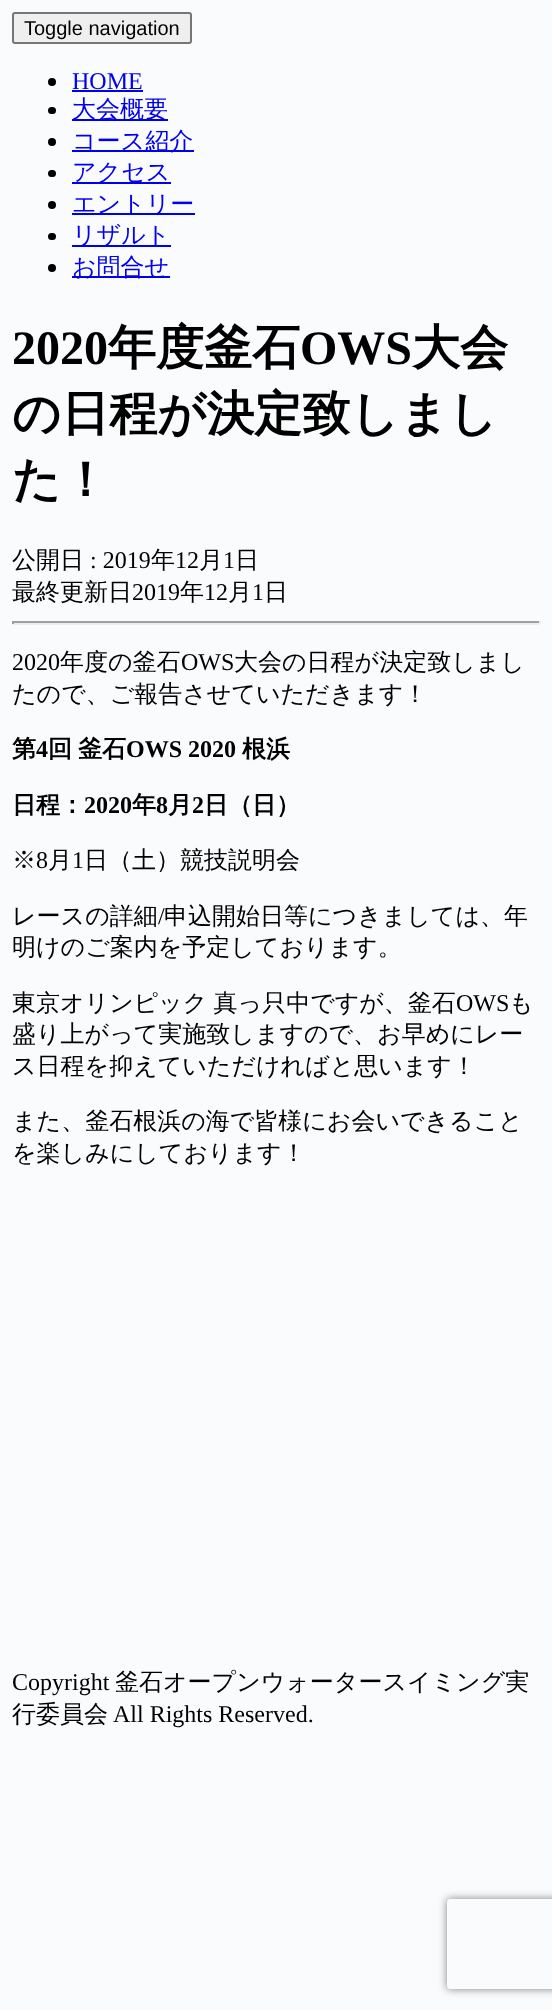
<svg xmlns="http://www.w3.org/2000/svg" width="552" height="2010">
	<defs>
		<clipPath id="clip1"><path d="M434 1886H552V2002H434ZM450 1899H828C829.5 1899 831 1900.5 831 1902V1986C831 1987.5 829.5 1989 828 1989H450C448.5 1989 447 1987.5 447 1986V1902C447 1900.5 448.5 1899 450 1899Z" clip-rule="evenodd" /></clipPath>
	</defs>
	<rect width="100%" height="100%" fill="#F9FBFC" />
	<rect x="13" y="13" width="178" height="30" rx="2" fill="#EFEFEF" stroke="#767676" stroke-width="2" />
	<text x="24" y="35" font-family="Liberation Sans" font-size="20" fill="#000000">Toggle navigation</text>
	<circle cx="52" cy="82" r="4" fill="#000000" />
	<text x="72" y="89" font-family="Liberation Serif" font-size="24" fill="#0000EE">HOME</text>
	<rect x="72" y="90" width="71" height="2" fill="#0000EE" />
	<rect x="48" y="107" width="8" height="7" rx="3.5" fill="#000000" />
	<rect x="72" y="119" width="96" height="2" fill="#0000EE" />
	<text x="72" y="117" font-family="WenQuanYi Zen Hei" font-size="24" font-weight="500" fill="#0000EE">大会概要</text>
	<circle cx="52" cy="142" r="4" fill="#000000" />
	<rect x="72" y="150" width="122" height="2" fill="#0000EE" />
	<text x="72" y="149" font-family="WenQuanYi Zen Hei" font-size="24" font-weight="500" fill="#0000EE">コース紹介</text>
	<rect x="48" y="170" width="8" height="7" rx="3.5" fill="#000000" />
	<rect x="72" y="182" width="99" height="2" fill="#0000EE" />
	<text x="72" y="180" font-family="WenQuanYi Zen Hei" font-size="24" font-weight="500" fill="#0000EE">アクセス</text>
	<circle cx="52" cy="205" r="4" fill="#000000" />
	<rect x="72" y="213" width="123" height="2" fill="#0000EE" />
	<text x="72" y="212" font-family="WenQuanYi Zen Hei" font-size="24" font-weight="500" fill="#0000EE">エントリー</text>
	<rect x="48" y="233" width="8" height="7" rx="3.5" fill="#000000" />
	<rect x="72" y="245" width="99" height="2" fill="#0000EE" />
	<text x="72" y="243" font-family="WenQuanYi Zen Hei" font-size="24" font-weight="500" fill="#0000EE">リザルト</text>
	<circle cx="52" cy="268" r="4" fill="#000000" />
	<rect x="72" y="276" width="98" height="2" fill="#0000EE" />
	<text x="72" y="275" font-family="WenQuanYi Zen Hei" font-size="24" font-weight="500" fill="#0000EE">お問合せ</text>
	<text x="12" y="364" font-family="Liberation Serif" font-size="48" font-weight="700" fill="#000000">2020</text>
	<text x="108" y="364" font-family="WenQuanYi Zen Hei" font-size="48" font-weight="700" fill="#000000">年度釜石</text>
	<text x="300" y="364" font-family="Liberation Serif" font-size="48" font-weight="700" fill="#000000">OWS</text>
	<g font-family="WenQuanYi Zen Hei" font-size="48" font-weight="700" fill="#000000">
		<text x="412" y="364">大会</text>
		<text x="12" y="430">の日程が決定致しまし</text>
		<text x="12" y="496">た！</text>
	</g>
	<text x="12" y="568" font-family="WenQuanYi Zen Hei" font-size="24" font-weight="500" fill="#000000">公開日</text>
	<text x="90" y="568" font-family="Liberation Serif" font-size="24" fill="#000000">: 2019</text>
	<text x="151" y="568" font-family="WenQuanYi Zen Hei" font-size="24" font-weight="500" fill="#000000">年</text>
	<text x="175" y="568" font-family="Liberation Serif" font-size="24" fill="#000000">12</text>
	<text x="199" y="568" font-family="WenQuanYi Zen Hei" font-size="24" font-weight="500" fill="#000000">月</text>
	<text x="223" y="568" font-family="Liberation Serif" font-size="24" fill="#000000">1</text>
	<g font-family="WenQuanYi Zen Hei" font-size="24" font-weight="500" fill="#000000">
		<text x="235" y="568">日</text>
		<text x="12" y="600">最終更新日</text>
	</g>
	<text x="132" y="600" font-family="Liberation Serif" font-size="24" fill="#000000">2019</text>
	<text x="180" y="600" font-family="WenQuanYi Zen Hei" font-size="24" font-weight="500" fill="#000000">年</text>
	<text x="204" y="600" font-family="Liberation Serif" font-size="24" fill="#000000">12</text>
	<text x="228" y="600" font-family="WenQuanYi Zen Hei" font-size="24" font-weight="500" fill="#000000">月</text>
	<text x="252" y="600" font-family="Liberation Serif" font-size="24" fill="#000000">1</text>
	<text x="264" y="600" font-family="WenQuanYi Zen Hei" font-size="24" font-weight="500" fill="#000000">日</text>
	<rect x="12" y="621" width="528" height="2" fill="#9F9F9F" />
	<rect x="539" y="621" width="2" height="3" fill="#EEEEEE" />
	<rect x="12" y="623" width="528" height="2" fill="#EEEEEE" />
	<rect x="12" y="621" width="2" height="3" fill="#9F9F9F" />
	<text x="12" y="670" font-family="Liberation Serif" font-size="24" fill="#000000">2020</text>
	<text x="60" y="670" font-family="WenQuanYi Zen Hei" font-size="24" font-weight="500" fill="#000000">年度の釜石</text>
	<text x="181" y="670" font-family="Liberation Serif" font-size="24" fill="#000000">OWS</text>
	<g font-family="WenQuanYi Zen Hei" font-size="24" font-weight="500" fill="#000000">
		<text x="234" y="670">大会の日程が決定致しまし</text>
		<text x="12" y="702">たので、ご報告させていただきます！</text>
	</g>
	<text x="12" y="757" font-family="WenQuanYi Zen Hei" font-size="24" font-weight="700" fill="#000000">第</text>
	<text x="36" y="757" font-family="Liberation Serif" font-size="24" font-weight="700" fill="#000000">4</text>
	<g font-family="WenQuanYi Zen Hei" font-size="24" font-weight="700" fill="#000000">
		<text x="48" y="757">回</text>
		<text x="78" y="757">釜石</text>
	</g>
	<text x="126" y="757" font-family="Liberation Serif" font-size="24" font-weight="700" fill="#000000">OWS 2020</text>
	<g font-family="WenQuanYi Zen Hei" font-size="24" font-weight="700" fill="#000000">
		<text x="242" y="757">根浜</text>
		<text x="12" y="813">日程：</text>
	</g>
	<text x="84" y="813" font-family="Liberation Serif" font-size="24" font-weight="700" fill="#000000">2020</text>
	<text x="132" y="813" font-family="WenQuanYi Zen Hei" font-size="24" font-weight="700" fill="#000000">年</text>
	<text x="156" y="813" font-family="Liberation Serif" font-size="24" font-weight="700" fill="#000000">8</text>
	<text x="168" y="813" font-family="WenQuanYi Zen Hei" font-size="24" font-weight="700" fill="#000000">月</text>
	<text x="192" y="813" font-family="Liberation Serif" font-size="24" font-weight="700" fill="#000000">2</text>
	<text x="204" y="813" font-family="WenQuanYi Zen Hei" font-size="24" font-weight="700" fill="#000000">日（日）</text>
	<text x="12" y="868" font-family="WenQuanYi Zen Hei" font-size="24" font-weight="500" fill="#000000">※</text>
	<text x="36" y="868" font-family="Liberation Serif" font-size="24" fill="#000000">8</text>
	<text x="48" y="868" font-family="WenQuanYi Zen Hei" font-size="24" font-weight="500" fill="#000000">月</text>
	<text x="72" y="868" font-family="Liberation Serif" font-size="24" fill="#000000">1</text>
	<g font-family="WenQuanYi Zen Hei" font-size="24" font-weight="500" fill="#000000">
		<text x="84" y="868">日（土）競技説明会</text>
		<text x="12" y="924">レースの詳細</text>
	</g>
	<text x="158" y="924" font-family="Liberation Serif" font-size="24" fill="#000000">/</text>
	<g font-family="WenQuanYi Zen Hei" font-size="24" font-weight="500" fill="#000000">
		<text x="164" y="924">申込開始日等につきましては、年</text>
		<text x="12" y="955">明けのご案内を予定しております。</text>
		<text x="12" y="1011" word-spacing="-1">東京オリンピック 真っ只中ですが、釜石</text>
	</g>
	<text x="456" y="1011" font-family="Liberation Serif" font-size="24" fill="#000000">OWS</text>
	<g font-family="WenQuanYi Zen Hei" font-size="24" font-weight="500" fill="#000000">
		<text x="509" y="1011">も</text>
		<text x="12" y="1042">盛り上がって実施致しますので、お早めにレー</text>
		<text x="12" y="1074">ス日程を抑えていただければと思います！</text>
		<text x="12" y="1129">また、釜石根浜の海で皆様にお会いできること</text>
		<text x="12" y="1161">を楽しみにしております！</text>
	</g>
	<text x="12" y="1690" font-family="Liberation Serif" font-size="24" fill="#000000">Copyright</text>
	<g font-family="WenQuanYi Zen Hei" font-size="24" font-weight="500" fill="#000000">
		<text x="115" y="1690">釜石オープンウォータースイミング実</text>
		<text x="12" y="1722">行委員会</text>
	</g>
	<text x="113" y="1722" font-family="Liberation Serif" font-size="24" fill="#000000">All Rights Reserved.</text>
	<g clip-path="url(#clip1)">
		<rect x="447" y="1899" width="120" height="90" rx="3" fill="#808080" filter="blur(4px)" />
	</g>
</svg>
